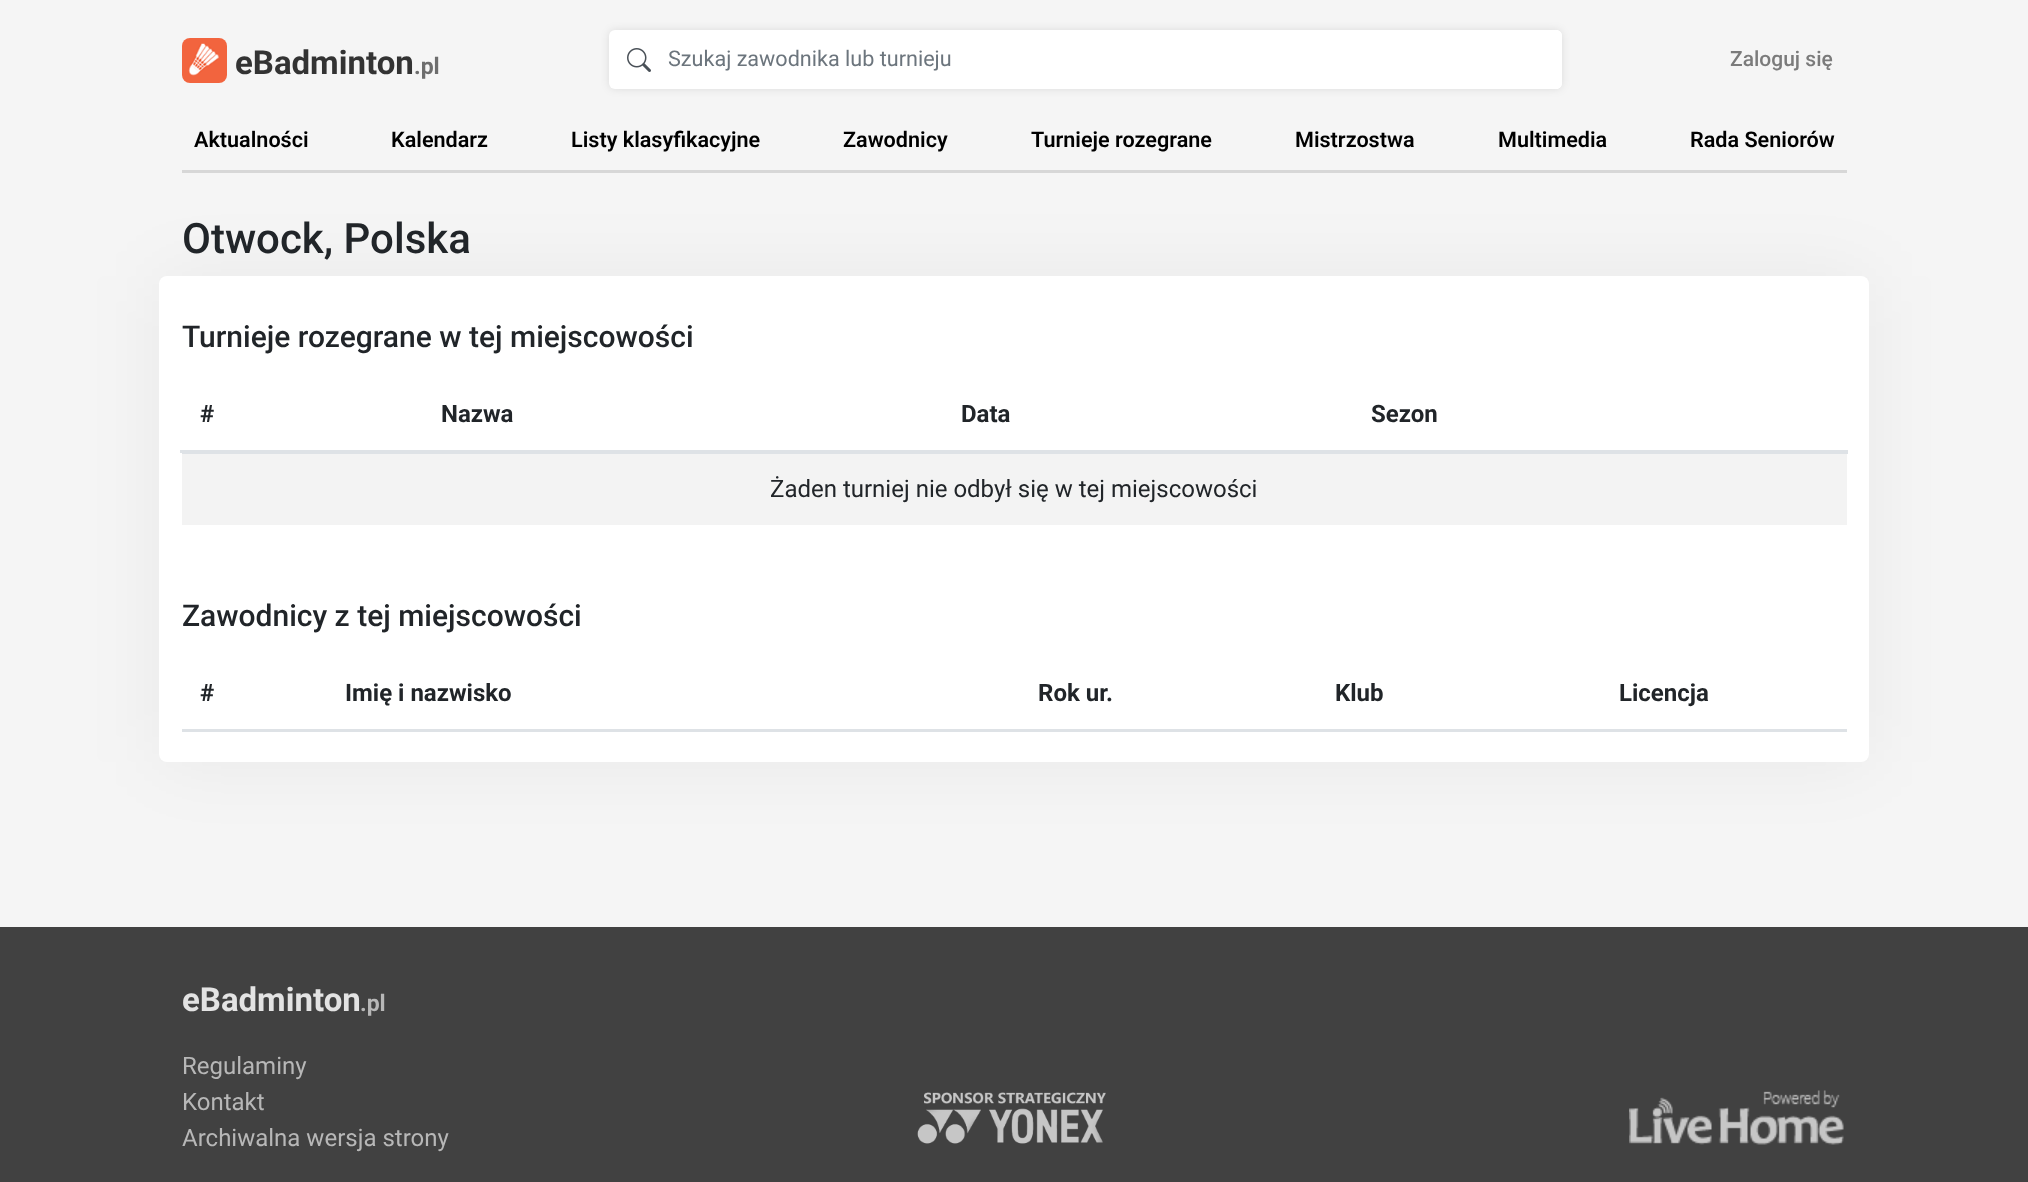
<svg xmlns="http://www.w3.org/2000/svg" width="2028" height="1182">
	<rect width="100%" height="100%" fill="#F5F5F5" />
	<rect x="182" y="38" width="45" height="45" rx="8" fill="#F2643E" />
	<image x="188" y="43" width="31" height="33" href="assets/img1.png" />
	<text x="235" y="74" font-family="Roboto" font-size="33" font-weight="700" fill="#333333">eBadminton</text>
	<text x="414" y="74" font-family="Roboto" font-size="23" font-weight="700" fill="#6D6D6D">.pl</text>
	<rect x="609" y="30" width="953" height="59" rx="6" fill="#000000" fill-opacity="0.1" filter="blur(4px)" />
	<rect x="609" y="30" width="953" height="59" rx="6" fill="#FFFFFF" />
	<image x="627" y="48" width="24" height="24" href="assets/img2.png" />
	<path d="M668 30H1556C1559.5 30 1562 32.5 1562 36V83C1562 86.5 1559.5 89 1556 89H668Z" fill="#FFFFFF" />
	<text x="668" y="66" font-family="Roboto" font-size="21.6" fill="#6C757D">Szukaj zawodnika lub turnieju</text>
	<text x="1730" y="66" font-family="Roboto" font-size="21" font-weight="500" fill="#7B7B7B">Zaloguj się</text>
	<rect x="159" y="276" width="1710" height="486" rx="8" fill="#000000" fill-opacity="0.05" filter="blur(37.5px)" />
	<rect x="182" y="170" width="1665" height="3" fill="#D7D7D7" />
	<g font-family="Roboto" font-size="21.6" font-weight="600" fill="#000000">
		<text x="194" y="147">Aktualności</text>
		<text x="391" y="147">Kalendarz</text>
		<text x="571" y="147">Listy klasyfikacyjne</text>
		<text x="843" y="147">Zawodnicy</text>
		<text x="1031" y="147">Turnieje rozegrane</text>
		<text x="1295" y="147">Mistrzostwa</text>
		<text x="1498" y="147">Multimedia</text>
		<text x="1690" y="147">Rada Seniorów</text>
	</g>
	<text x="182" y="253" font-family="Roboto" font-size="42" font-weight="500" fill="#212529">Otwock, Polska</text>
	<rect x="159" y="276" width="1710" height="486" rx="8" fill="#FFFFFF" />
	<text x="182" y="347" font-family="Roboto" font-size="30" font-weight="500" fill="#212529">Turnieje rozegrane w tej miejscowości</text>
	<g font-family="Roboto" font-size="24" font-weight="700" fill="#212529">
		<text x="200" y="422">#</text>
		<text x="441" y="422">Nazwa</text>
		<text x="961" y="422">Data</text>
	</g>
	<rect x="180" y="450" width="1668" height="3" fill="#DEE2E6" />
	<text x="1371" y="422" font-family="Roboto" font-size="24" font-weight="700" fill="#212529">Sezon</text>
	<rect x="182" y="454" width="1665" height="71" fill="#F3F3F3" />
	<rect x="182" y="453" width="1666" height="1" fill="#DEE2E6" />
	<text x="770" y="497" font-family="Roboto" font-size="24" fill="#212529">Żaden turniej nie odbył się w tej miejscowości</text>
	<text x="182" y="626" font-family="Roboto" font-size="30" font-weight="500" fill="#212529">Zawodnicy z tej miejscowości</text>
	<g font-family="Roboto" font-size="24" font-weight="700" fill="#212529">
		<text x="200" y="701">#</text>
		<text x="345" y="701">Imię i nazwisko</text>
		<text x="1038" y="701">Rok ur.</text>
		<text x="1335" y="701">Klub</text>
	</g>
	<rect x="182" y="729" width="1665" height="3" fill="#DEE2E6" />
	<text x="1619" y="701" font-family="Roboto" font-size="24" font-weight="700" fill="#212529">Licencja</text>
	<rect x="0" y="927" width="2028" height="255" fill="#414141" />
	<text x="182" y="1011" font-family="Roboto" font-size="33" font-weight="700" fill="#E3E3E3">eBadminton</text>
	<text x="360" y="1011" font-family="Roboto" font-size="23" font-weight="700" fill="#B7B7B7">.pl</text>
	<g font-family="Roboto" font-size="24" fill="#B7B7B7">
		<text x="182" y="1074">Regulaminy</text>
		<text x="182" y="1110">Kontakt</text>
		<text x="182" y="1146">Archiwalna wersja strony</text>
	</g>
	<image x="917" y="1092" width="189" height="52" href="assets/img3.png" />
	<image x="1629" y="1090" width="215" height="55" href="assets/img4.png" />
</svg>
